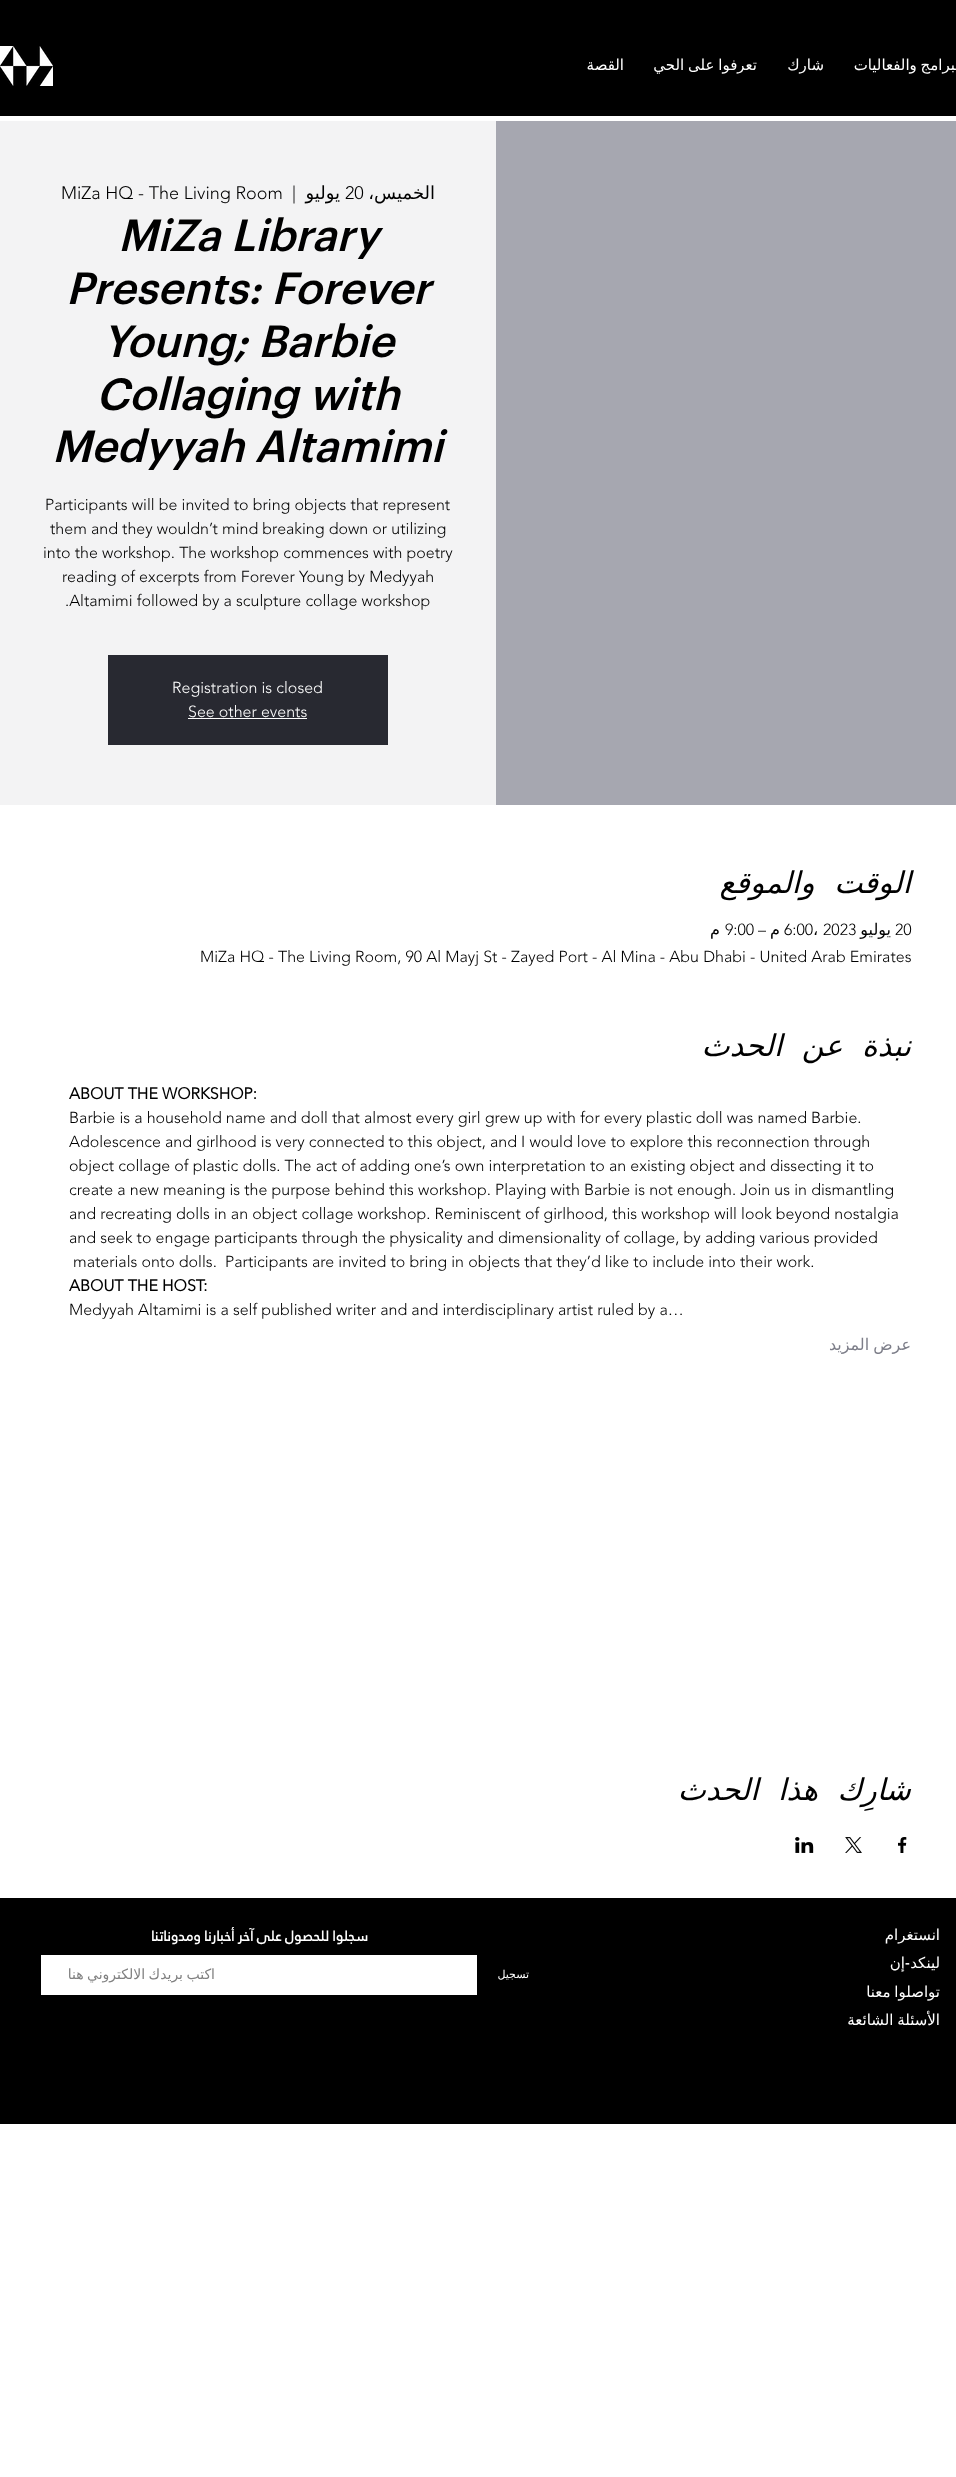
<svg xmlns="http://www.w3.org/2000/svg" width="956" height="2477">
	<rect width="100%" height="100%" fill="#FFFFFF" />
	<rect x="0" y="0" width="956" height="116" fill="#000000" />
	<image x="0" y="46" width="53" height="40" href="assets/img1.png" />
	<g font-family="DejaVu Sans" font-size="15" direction="rtl" fill="#FFFFFF">
		<text x="624" y="70">القصة</text>
		<text x="757" y="70" word-spacing="-1">تعرفوا على الحي</text>
		<text x="824" y="70">شارك</text>
		<text x="964" y="70" word-spacing="-1">البرامج والفعاليات</text>
	</g>
	<rect x="0" y="121" width="496" height="684" fill="#F3F3F4" />
	<g font-family="'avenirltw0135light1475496'" font-size="18" font-weight="300" fill="#000000">
		<text x="61" y="199">MiZa HQ - The Living Room</text>
		<text x="292" y="199">|</text>
	</g>
	<text x="340" y="199" font-family="DejaVu Sans" font-size="18" direction="rtl" fill="#000000">يوليو</text>
	<text x="345" y="199" font-family="'avenirltw0135light1475496'" font-size="18" font-weight="300" fill="#000000">20</text>
	<text x="435" y="199" font-family="DejaVu Sans" font-size="18" direction="rtl" fill="#000000">الخميس،</text>
	<g font-family="Graphik" font-size="44" font-weight="500" font-style="italic" fill="#000000">
		<text x="118" y="251">MiZa Library</text>
		<text x="66" y="304">Presents: Forever</text>
		<text x="102" y="357">Young; Barbie</text>
		<text x="96" y="410">Collaging with</text>
		<text x="52" y="462">Medyyah Altamimi</text>
	</g>
	<g font-family="'avenirltw0135light1475496'" font-size="16" font-weight="300" fill="#000000">
		<text x="45" y="510">Participants will be invited to bring objects that represent</text>
		<text x="50" y="534">them and they wouldn’t mind breaking down or utilizing</text>
		<text x="43" y="558">into the workshop. The workshop commences with poetry</text>
		<text x="62" y="582">reading of excerpts from Forever Young by Medyyah</text>
		<text x="65" y="606">.Altamimi followed by a sculpture collage workshop</text>
	</g>
	<rect x="108" y="655" width="280" height="90" fill="#282931" />
	<g font-family="'avenirltw0135light1475496'" font-size="16" font-weight="300" fill="#FFFFFF">
		<text x="172" y="693">Registration is closed</text>
		<text x="188" y="717">See other events</text>
	</g>
	<rect x="188" y="718" width="119" height="1" fill="#FFFFFF" />
	<rect x="496" y="121" width="460" height="684" fill="#A6A7B0" />
	<text x="911" y="893" word-spacing="10" font-family="DejaVu Sans" font-size="30" font-style="italic" direction="rtl" fill="#000000">الوقت والموقع</text>
	<text x="720" y="935" font-family="DejaVu Sans" font-size="16" direction="rtl" fill="#000000">م</text>
	<text x="725" y="935" font-family="'avenirltw0135light1475496'" font-size="16" font-weight="300" fill="#000000">9:00</text>
	<text x="766" y="935" font-family="'avenirltw0135light1475496'" font-size="16" font-weight="300" direction="rtl" fill="#000000">–</text>
	<text x="780" y="935" font-family="DejaVu Sans" font-size="16" direction="rtl" fill="#000000">م</text>
	<text x="784" y="935" font-family="'avenirltw0135light1475496'" font-size="16" font-weight="300" fill="#000000">6:00</text>
	<text x="813" y="935" font-family="DejaVu Sans" font-size="16" fill="#000000">،</text>
	<text x="823" y="935" font-family="'avenirltw0135light1475496'" font-size="16" font-weight="300" fill="#000000">2023</text>
	<text x="891" y="935" font-family="DejaVu Sans" font-size="16" direction="rtl" fill="#000000">يوليو</text>
	<g font-family="'avenirltw0135light1475496'" font-size="16" font-weight="300" fill="#000000">
		<text x="895" y="935">20</text>
		<text x="200" y="962">MiZa HQ - The Living Room, 90 Al Mayj St - Zayed Port - Al Mina - Abu Dhabi - United Arab Emirates</text>
	</g>
	<text x="911" y="1056" word-spacing="10" font-family="DejaVu Sans" font-size="30" font-style="italic" direction="rtl" fill="#000000">نبذة عن الحدث</text>
	<text x="69" y="1099" font-family="'avenirltw0135light1475496'" font-size="16" font-weight="700" fill="#000000">ABOUT THE WORKSHOP:</text>
	<g font-family="'avenirltw0135light1475496'" font-size="16" font-weight="300" fill="#000000">
		<text x="69" y="1123">Barbie is a household name and doll that almost every girl grew up with for every plastic doll was named Barbie.</text>
		<text x="69" y="1147">Adolescence and girlhood is very connected to this object, and I would love to explore this reconnection through</text>
		<text x="69" y="1171">object collage of plastic dolls. The act of adding one’s own interpretation to an existing object and dissecting it to</text>
		<text x="69" y="1195">create a new meaning is the purpose behind this workshop. Playing with Barbie is not enough. Join us in dismantling</text>
		<text x="69" y="1219">and recreating dolls in an object collage workshop. Reminiscent of girlhood, this workshop will look beyond nostalgia</text>
		<text x="69" y="1243">and seek to engage participants through the physicality and dimensionality of collage, by adding various provided</text>
		<text x="73" y="1267" xml:space="preserve">materials onto dolls.  Participants are invited to bring in objects that they’d like to include into their work.</text>
	</g>
	<text x="69" y="1291" font-family="'avenirltw0135light1475496'" font-size="16" font-weight="700" fill="#000000">ABOUT THE HOST:</text>
	<text x="69" y="1315" font-family="'avenirltw0135light1475496'" font-size="16" font-weight="300" fill="#000000">Medyyah Altamimi is a self published writer and and interdisciplinary artist ruled by a…</text>
	<text x="911" y="1350" word-spacing="-1" font-family="DejaVu Sans" font-size="16" direction="rtl" fill="#7D7E89">عرض المزيد</text>
	<text x="911" y="1800" word-spacing="10" font-family="DejaVu Sans" font-size="30" font-style="italic" direction="rtl" fill="#000000">شارِك هذا الحدث</text>
	<image x="795" y="1837" width="19" height="16" href="assets/img2.png" />
	<image x="845" y="1837" width="17" height="16" href="assets/img3.png" />
	<image x="898" y="1837" width="9" height="16" href="assets/img4.png" />
	<rect x="0" y="1898" width="956" height="226" fill="#000000" />
	<text x="368" y="1941" font-family="'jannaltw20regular'" font-size="14" font-weight="700" direction="rtl" fill="#FFFFFF">سجلوا للحصول على آخر أخبارنا ومدوناتنا</text>
	<rect x="41" y="1955" width="436" height="40" fill="#FFFFFF" />
	<text x="215" y="1979" word-spacing="-1" font-family="DejaVu Sans" font-size="14" direction="rtl" fill="#808080">اكتب بريدك الالكتروني هنا</text>
	<text x="529" y="1978" font-family="DejaVu Sans" font-size="11" direction="rtl" fill="#FFFFFF">تسجيل</text>
	<g font-family="DejaVu Sans" font-size="15" direction="rtl" fill="#FFFFFF">
		<text x="940" y="1940">انستغرام</text>
		<text x="905" y="1968">إن</text>
	</g>
	<text x="910" y="1968" font-family="Graphik" font-size="15" font-weight="500" direction="rtl" fill="#FFFFFF">-</text>
	<g font-family="DejaVu Sans" font-size="15" direction="rtl" fill="#FFFFFF">
		<text x="940" y="1968">لينكد</text>
		<text x="940" y="1997" word-spacing="-1">تواصلوا معنا</text>
		<text x="940" y="2025" word-spacing="-1">الأسئلة الشائعة</text>
	</g>
</svg>
